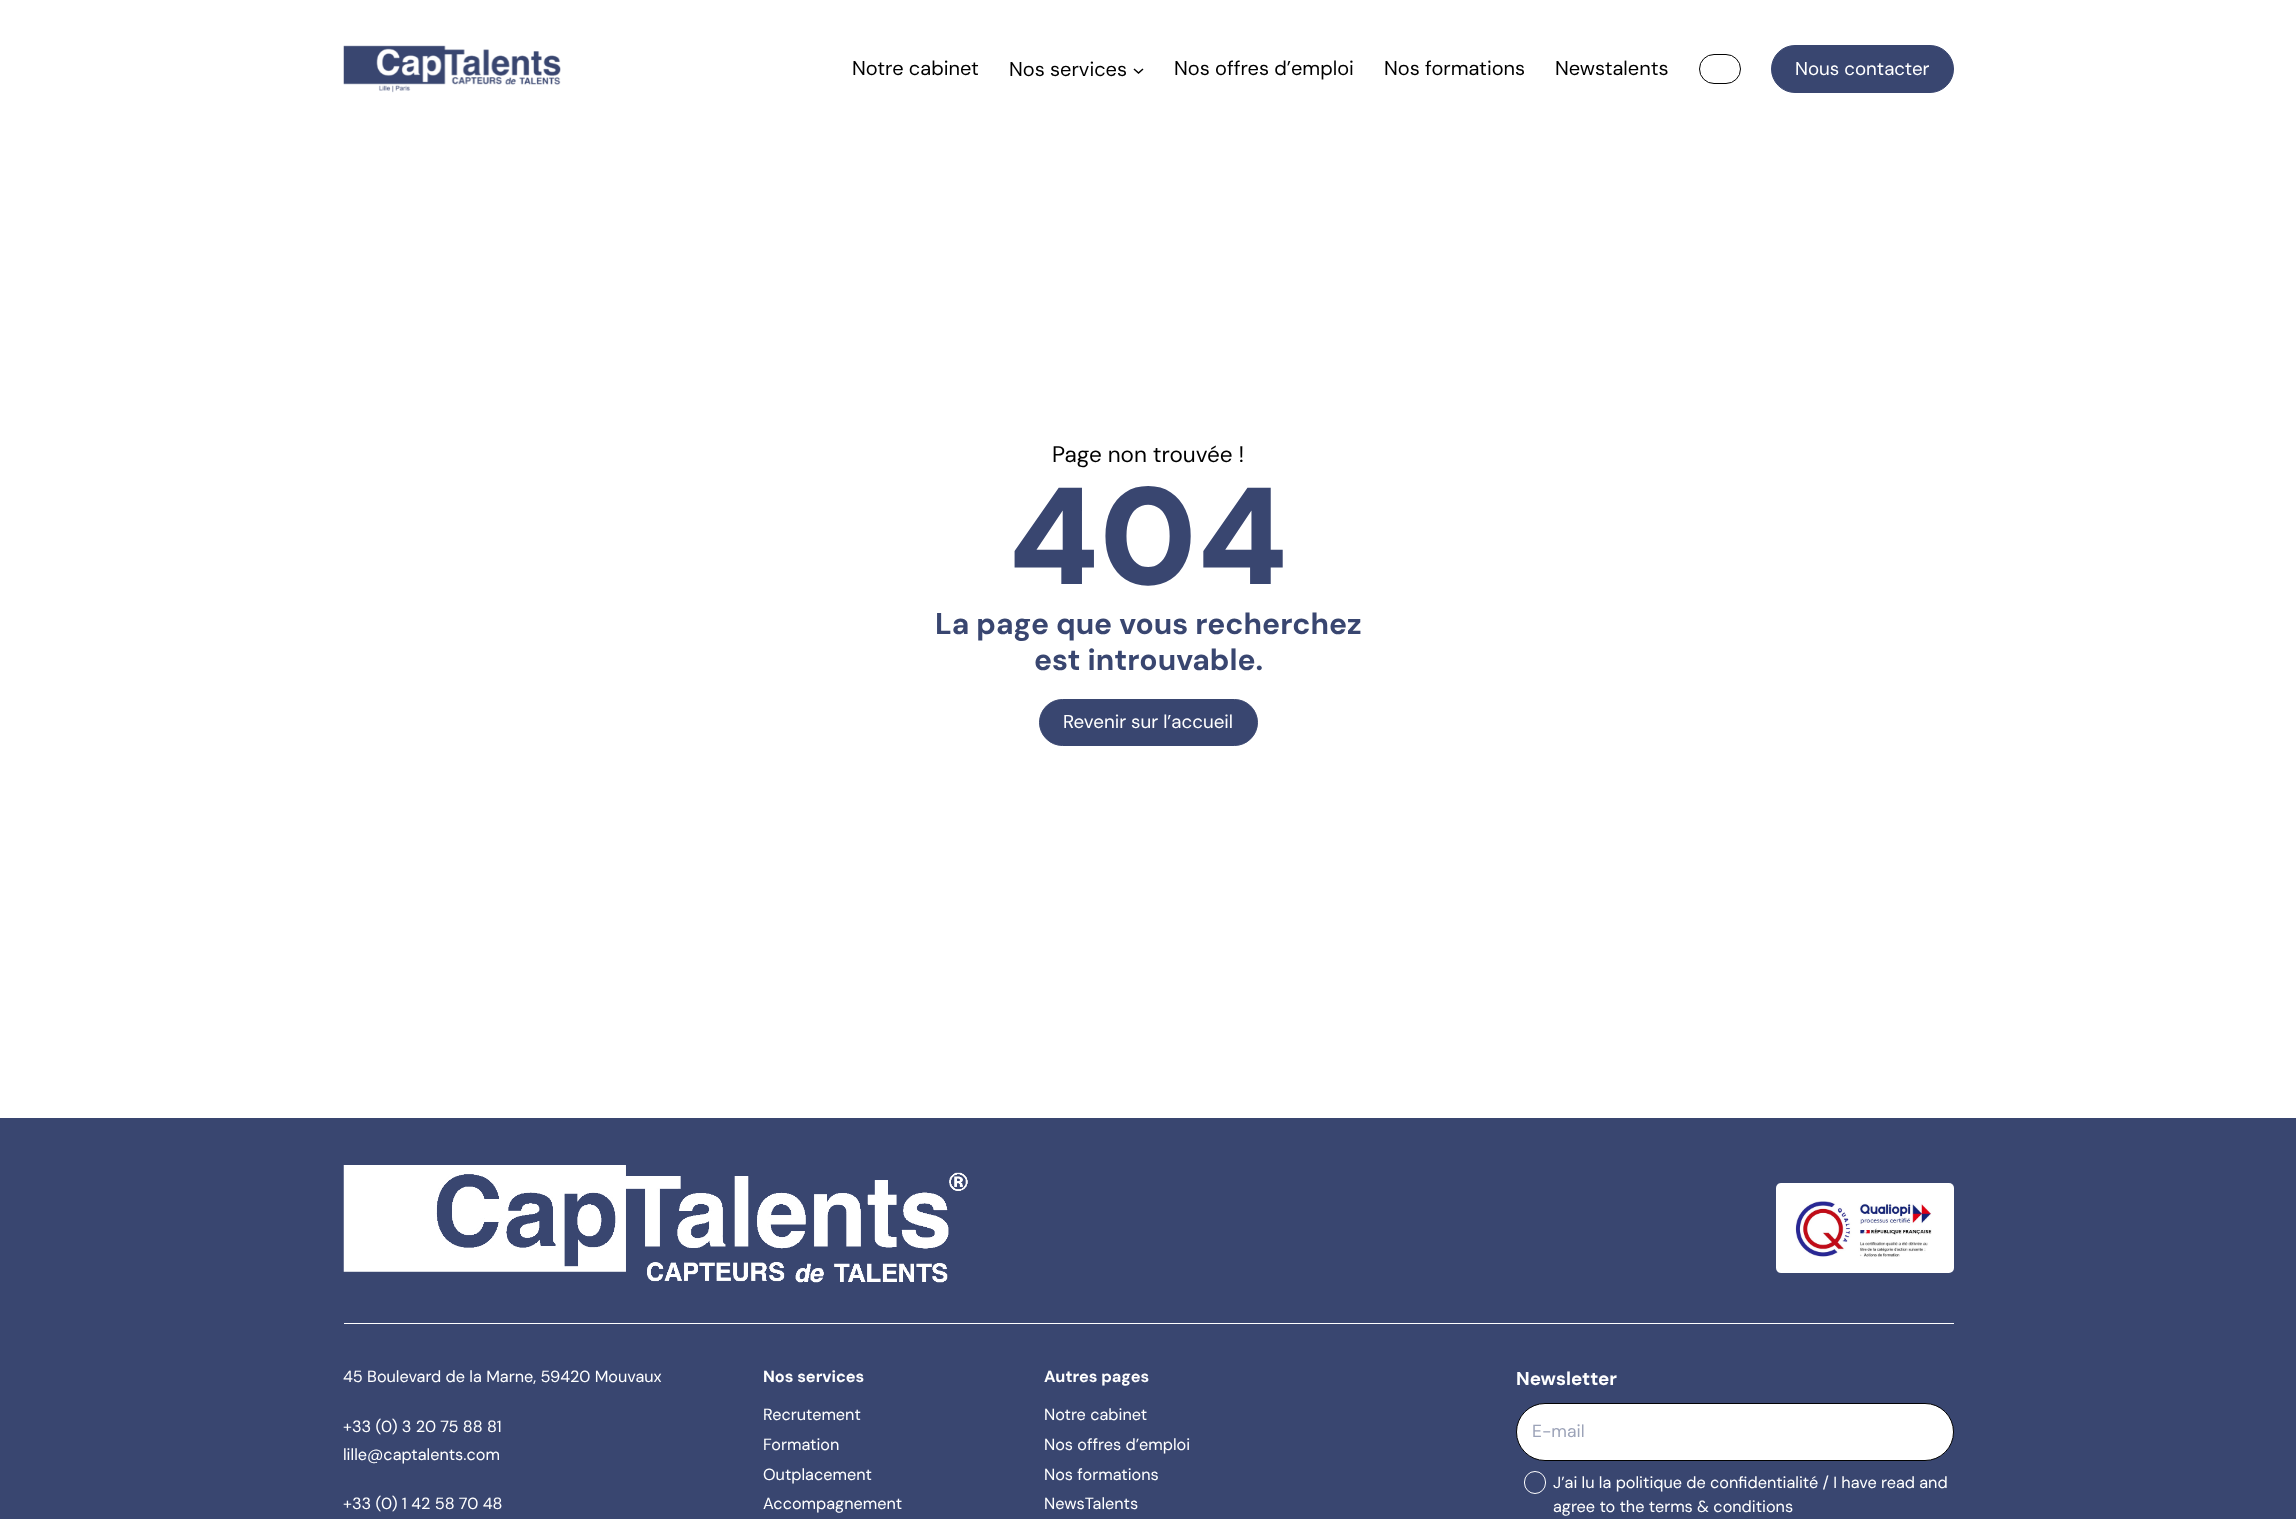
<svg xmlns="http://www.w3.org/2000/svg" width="2296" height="1519">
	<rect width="100%" height="100%" fill="#FFFFFF" />
	<image x="343" y="45" width="218" height="48" href="assets/img1.png" />
	<g font-family="DM Sans" font-size="20" fill="#000000">
		<text x="852" y="75">Notre cabinet</text>
		<text x="1009" y="76">Nos services</text>
	</g>
	<path d="M1134 69L1138.5 73L1143 69" fill="none" stroke="#000000" stroke-width="1.5" />
	<g font-family="DM Sans" font-size="20" fill="#000000">
		<text x="1174" y="75">Nos offres d’emploi</text>
		<text x="1384" y="75">Nos formations</text>
		<text x="1555" y="75">Newstalents</text>
	</g>
	<rect x="1699.5" y="54.5" width="41" height="29" rx="14.5" fill="none" stroke="#020202" />
	<rect x="1771.5" y="45.5" width="182" height="47" rx="23.5" fill="#394670" stroke="#394670" />
	<text x="1795" y="75" font-family="DM Sans" font-size="18.75" fill="#FFFFFF">Nous contacter</text>
	<text x="1052" y="462" font-family="DM Sans" font-size="22.5" fill="#000000">Page non trouvée !</text>
	<text x="1008" y="584" font-family="DM Sans" font-size="137.5" font-weight="900" fill="#394670">404</text>
	<g font-family="DM Sans" font-size="30" font-weight="700" fill="#394670">
		<text x="935" y="634">La page que vous recherchez</text>
		<text x="1034" y="670">est introuvable.</text>
	</g>
	<rect x="1039.5" y="699.5" width="218" height="46" rx="23" fill="#394670" stroke="#394670" />
	<text x="1063" y="728" font-family="DM Sans" font-size="18.75" fill="#FFFFFF">Revenir sur l’accueil</text>
	<rect x="0" y="1118" width="2296" height="401" fill="#394670" />
	<rect x="344" y="1323" width="1610" height="1" fill="#FFFFFF" />
	<image x="343" y="1165" width="625" height="118" href="assets/img2.png" />
	<rect x="1776" y="1183" width="178" height="90" rx="5" fill="#FFFFFF" />
	<image x="1795" y="1201" width="137" height="56" href="assets/img3.png" />
	<g font-family="DM Sans" font-size="16.25" fill="#FFFFFF">
		<text x="343" y="1382">45 Boulevard de la Marne, 59420 Mouvaux</text>
		<text x="343" y="1432">+33 (0) 3 20 75 88 81</text>
		<text x="343" y="1460">lille@captalents.com</text>
		<text x="343" y="1509">+33 (0) 1 42 58 70 48</text>
	</g>
	<text x="763" y="1382" font-family="DM Sans" font-size="16.25" font-weight="700" fill="#FFFFFF">Nos services</text>
	<g font-family="DM Sans" font-size="16.25" fill="#FFFFFF">
		<text x="763" y="1420">Recrutement</text>
		<text x="763" y="1450">Formation</text>
		<text x="763" y="1480">Outplacement</text>
		<text x="763" y="1509">Accompagnement</text>
	</g>
	<text x="1044" y="1382" font-family="DM Sans" font-size="16.25" font-weight="700" fill="#FFFFFF">Autres pages</text>
	<g font-family="DM Sans" font-size="16.25" fill="#FFFFFF">
		<text x="1044" y="1420">Notre cabinet</text>
		<text x="1044" y="1450">Nos offres d’emploi</text>
		<text x="1044" y="1480">Nos formations</text>
		<text x="1044" y="1509">NewsTalents</text>
	</g>
	<text x="1516" y="1385" font-family="DM Sans" font-size="18.75" font-weight="700" fill="#FFFFFF">Newsletter</text>
	<rect x="1516.5" y="1403.5" width="437" height="57" rx="28.5" fill="#FFFFFF" stroke="#020202" />
	<text x="1532" y="1437" font-family="DM Sans" font-size="17.5" fill="#9CA3B8">E-mail</text>
	<rect x="1524.5" y="1471.5" width="21" height="22" rx="10.5" fill="none" stroke="#FFFFFF" />
	<g font-family="DM Sans" font-size="16.25" fill="#FFFFFF">
		<text x="1553" y="1488">J’ai lu la politique de confidentialité / I have read and</text>
		<text x="1553" y="1512">agree to the terms &amp; conditions</text>
	</g>
</svg>
